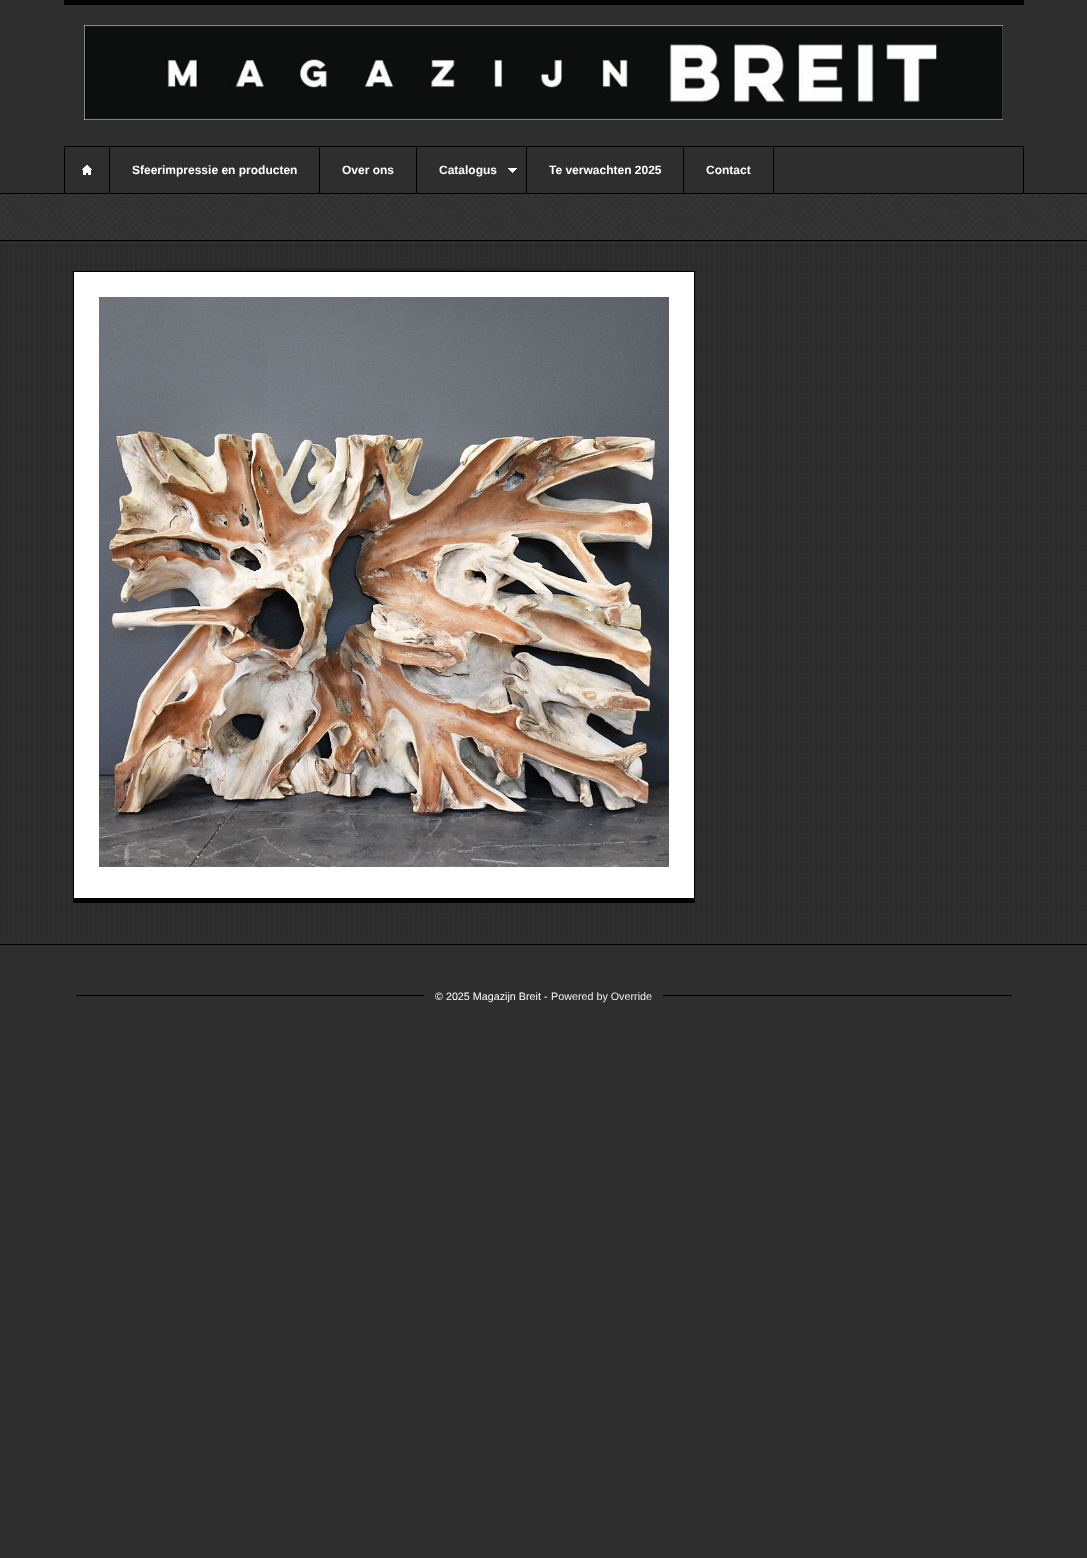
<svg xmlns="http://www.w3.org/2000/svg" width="1087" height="1558">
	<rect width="100%" height="100%" fill="#2E2E2E" />
	<rect x="64" y="0" width="960" height="5" fill="#000000" />
	<image x="84" y="25" width="919" height="95" href="assets/img1.png" />
	<rect x="64" y="146" width="960" height="1" fill="#000000" />
	<rect x="1023" y="146" width="1" height="47" fill="#000000" />
	<rect x="64" y="146" width="1" height="47" fill="#000000" />
	<rect x="109" y="147" width="1" height="46" fill="#000000" />
	<image x="82" y="165" width="10" height="10" href="assets/img2.png" />
	<rect x="319" y="147" width="1" height="46" fill="#000000" />
	<text x="132" y="174" font-family="Liberation Sans" font-size="12" font-weight="700" fill="#FFFFFF">Sfeerimpressie en producten</text>
	<rect x="416" y="147" width="1" height="46" fill="#000000" />
	<text x="342" y="174" font-family="Liberation Sans" font-size="12" font-weight="700" fill="#FFFFFF">Over ons</text>
	<rect x="526" y="147" width="1" height="46" fill="#000000" />
	<text x="439" y="174" font-family="Liberation Sans" font-size="12" font-weight="700" fill="#FFFFFF">Catalogus</text>
	<image x="508" y="168" width="9" height="5" href="assets/img3.png" />
	<rect x="683" y="147" width="1" height="46" fill="#000000" />
	<text x="549" y="174" font-family="Liberation Sans" font-size="12" font-weight="700" fill="#FFFFFF">Te verwachten 2025</text>
	<rect x="773" y="147" width="1" height="46" fill="#000000" />
	<text x="706" y="174" font-family="Liberation Sans" font-size="12" font-weight="700" fill="#FFFFFF">Contact</text>
	<image x="0" y="194" width="1087" height="46" href="assets/img4.png" />
	<rect x="0" y="193" width="1087" height="1" fill="#000000" />
	<image x="0" y="241" width="1087" height="701" href="assets/img5.png" />
	<rect x="0" y="240" width="1087" height="1" fill="#000000" />
	<image x="135" y="268" width="479" height="3" href="assets/img6.png" />
	<rect x="74" y="272" width="620" height="626" fill="#FFFFFF" />
	<rect x="73" y="271" width="622" height="1" fill="#000000" />
	<rect x="694" y="271" width="1" height="632" fill="#000000" />
	<rect x="73" y="898" width="622" height="5" fill="#000000" />
	<rect x="73" y="271" width="1" height="632" fill="#000000" />
	<image x="99" y="297" width="570" height="570" href="assets/img7.png" />
	<rect x="0" y="944" width="1087" height="1" fill="#000000" />
	<rect x="76" y="995" width="936" height="1" fill="#000000" />
	<rect x="424" y="995" width="239" height="1" fill="#2E2E2E" />
	<text x="435" y="1000" font-family="Liberation Sans" font-size="10.75" fill="#FFFFFF">© 2025 Magazijn Breit -</text>
	<text x="551" y="1000" font-family="Liberation Sans" font-size="10.75" fill="#EEEEEE">Powered by Override</text>
</svg>
